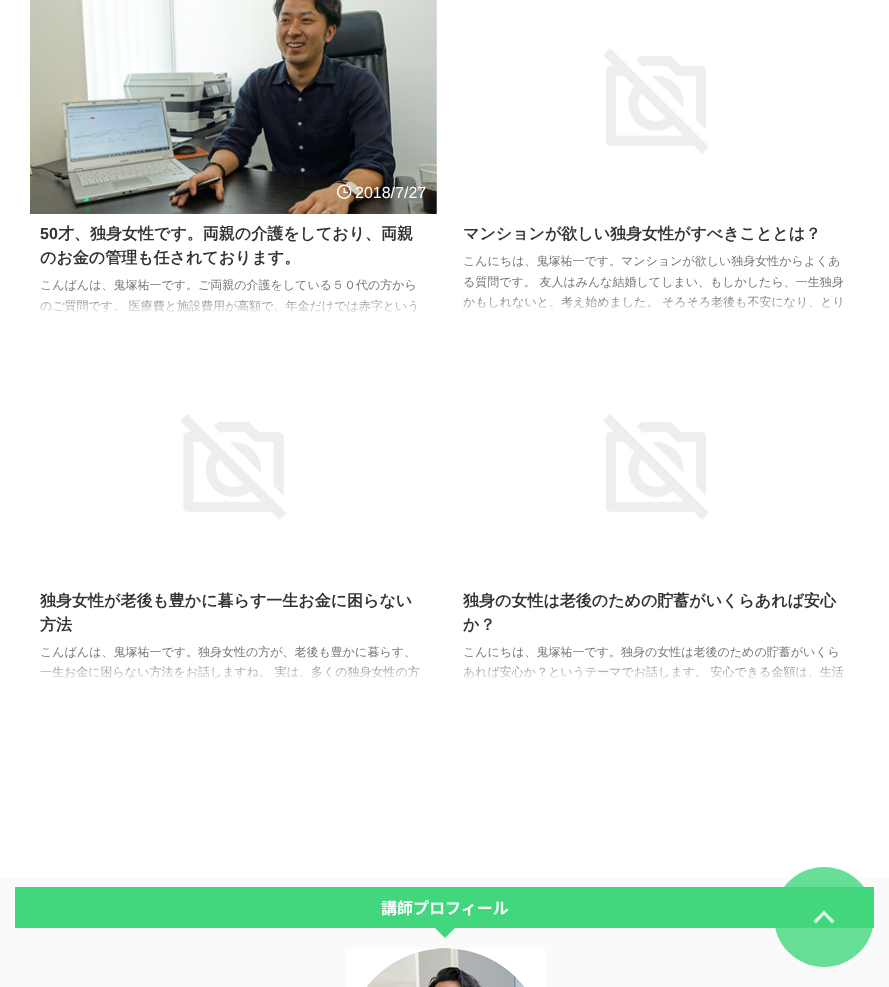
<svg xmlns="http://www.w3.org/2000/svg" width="889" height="987">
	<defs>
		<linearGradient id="g1" gradientUnits="userSpaceOnUse" x1="234" y1="297" x2="234" y2="317"><stop offset="0" stop-color="#FFFFFF" stop-opacity="0" /><stop offset="1" stop-color="#FFFFFF" /></linearGradient>
		<linearGradient id="g2" gradientUnits="userSpaceOnUse" x1="656" y1="297" x2="656" y2="317"><stop offset="0" stop-color="#FFFFFF" stop-opacity="0" /><stop offset="1" stop-color="#FFFFFF" /></linearGradient>
		<linearGradient id="g3" gradientUnits="userSpaceOnUse" x1="234" y1="663" x2="234" y2="683"><stop offset="0" stop-color="#FFFFFF" stop-opacity="0" /><stop offset="1" stop-color="#FFFFFF" /></linearGradient>
		<linearGradient id="g4" gradientUnits="userSpaceOnUse" x1="656" y1="663" x2="656" y2="683"><stop offset="0" stop-color="#FFFFFF" stop-opacity="0" /><stop offset="1" stop-color="#FFFFFF" /></linearGradient>
	</defs>
	<rect width="100%" height="100%" fill="#FAFAFA" />
	<rect x="0" y="0" width="889" height="878" fill="#FFFFFF" />
	<image x="30" y="0" width="407" height="214" href="assets/img1.png" />
	<image x="337" y="184" width="15" height="15" href="assets/img2.png" />
	<text x="355" y="198" font-family="Liberation Sans" font-size="16" fill="#FFFFFF">2018/7/27</text>
	<text x="40" y="239" font-family="Liberation Sans" font-size="16" font-weight="700" fill="#333333">50</text>
	<g font-family="WenQuanYi Zen Hei" font-size="16" font-weight="700" fill="#333333">
		<text x="58" y="239">才、独身女性です。両親の介護をしており、両親</text>
		<text x="40" y="263">のお金の管理も任されております。</text>
	</g>
	<g font-family="WenQuanYi Zen Hei" font-size="12" font-weight="500" fill="#777777">
		<text x="40" y="289">こんばんは、鬼塚祐一です。ご両親の介護をしている５０代の方から</text>
		<text x="40" y="310">のご質問です。 医療費と施設費用が高額で、年金だけでは赤字という</text>
	</g>
	<rect x="40" y="300" width="376" height="13" fill="url(#g1)" />
	<image x="603" y="48" width="106" height="106" href="assets/img3.png" />
	<text x="463" y="239" font-family="WenQuanYi Zen Hei" font-size="16" font-weight="700" fill="#333333">マンションが欲しい独身女性がすべきこととは？</text>
	<g font-family="WenQuanYi Zen Hei" font-size="12" font-weight="500" fill="#777777">
		<text x="463" y="265">こんにちは、鬼塚祐一です。マンションが欲しい独身女性からよくあ</text>
		<text x="463" y="286">る質問です。 友人はみんな結婚してしまい、もしかしたら、一生独身</text>
		<text x="463" y="306">かもしれないと、考え始めました。 そろそろ老後も不安になり、とり</text>
	</g>
	<rect x="463" y="297" width="378" height="12" fill="url(#g2)" />
	<image x="180" y="414" width="107" height="106" href="assets/img4.png" />
	<g font-family="WenQuanYi Zen Hei" font-size="16" font-weight="700" fill="#333333">
		<text x="40" y="606">独身女性が老後も豊かに暮らす一生お金に困らない</text>
		<text x="40" y="630">方法</text>
	</g>
	<g font-family="WenQuanYi Zen Hei" font-size="12" font-weight="500" fill="#777777">
		<text x="40" y="656">こんばんは、鬼塚祐一です。独身女性の方が、老後も豊かに暮らす、</text>
		<text x="40" y="676">一生お金に困らない方法をお話しますね。 実は、多くの独身女性の方</text>
	</g>
	<rect x="40" y="666" width="379" height="13" fill="url(#g3)" />
	<image x="603" y="414" width="106" height="106" href="assets/img5.png" />
	<g font-family="WenQuanYi Zen Hei" font-size="16" font-weight="700" fill="#333333">
		<text x="463" y="606">独身の女性は老後のための貯蓄がいくらあれば安心</text>
		<text x="463" y="630">か？</text>
	</g>
	<g font-family="WenQuanYi Zen Hei" font-size="12" font-weight="500" fill="#777777">
		<text x="463" y="656">こんにちは、鬼塚祐一です。独身の女性は老後のための貯蓄がいくら</text>
		<text x="463" y="676">あれば安心か？というテーマでお話します。 安心できる金額は、生活</text>
	</g>
	<rect x="463" y="666" width="380" height="13" fill="url(#g4)" />
	<rect x="15" y="887" width="859" height="41" fill="#42D77D" />
	<text x="381" y="914" font-family="Noto Sans JP" font-size="16" font-weight="700" fill="#FFFFFF">講師プロフィール</text>
	<path d="M435 928H455L445 938Z" fill="#42D77D" />
	<image x="345" y="948" width="200" height="39" href="assets/img6.png" />
	<circle cx="824" cy="917" r="50" fill="#42D77D" fill-opacity="0.8" />
	<path d="M824 915L816 923.5L813.5 921L824 910.5L834.5 921L832 923.5Z" fill="#D9F7E5" />
</svg>
